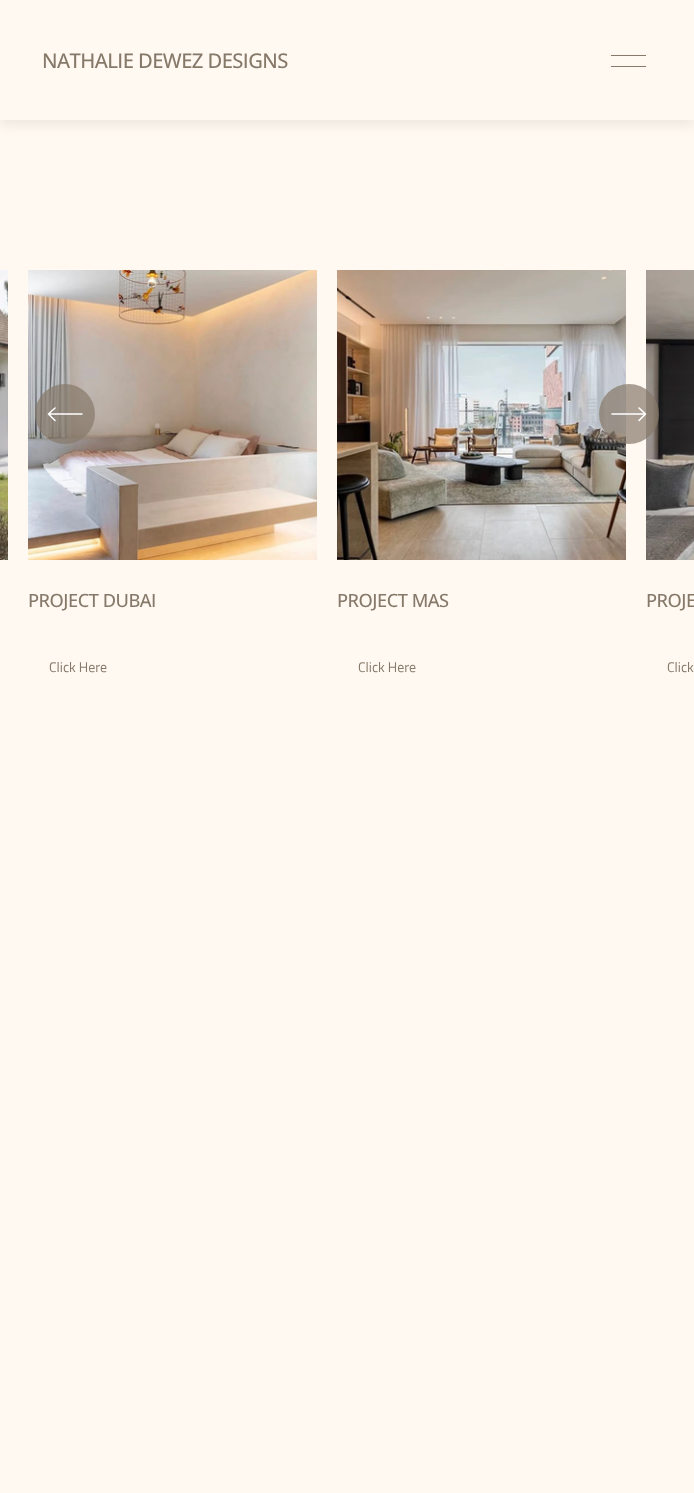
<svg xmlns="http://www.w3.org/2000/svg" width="694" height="1493">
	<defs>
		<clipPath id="clip1"><rect x="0" y="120" width="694" height="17" /></clipPath>
	</defs>
	<rect width="100%" height="100%" fill="#FFF9F2" />
	<g clip-path="url(#clip1)">
		<rect x="0" y="5" width="694" height="120" fill="#EDE6DD" filter="blur(6px)" />
	</g>
	<text x="42" y="68" font-family="Open Sans" font-size="20.25" font-weight="500" letter-spacing="-0.6" fill="#867969">NATHALIE DEWEZ DESIGNS</text>
	<rect x="611" y="55" width="35" height="1" fill="#867969" />
	<rect x="611" y="66" width="35" height="1" fill="#867969" />
	<image x="28" y="270" width="289" height="290" href="assets/img2.png" />
	<circle cx="65" cy="414" r="30" fill="#867969" fill-opacity="0.7" />
	<path d="M55 420.5L48.5 414L55 408M82 414H50" fill="none" stroke="#FFFFFF" stroke-width="1.6" stroke-linecap="round" stroke-linejoin="round" />
	<image x="337" y="270" width="289" height="290" href="assets/img3.png" />
	<image x="646" y="270" width="48" height="290" href="assets/img4.png" />
	<circle cx="629" cy="414" r="30" fill="#867969" fill-opacity="0.7" />
	<path d="M639 408L645.5 414L639 420.5M612 414H644.5" fill="none" stroke="#FFFFFF" stroke-width="1.6" stroke-linecap="round" stroke-linejoin="round" />
	<image x="0" y="270" width="8" height="290" href="assets/img1.png" />
	<text x="28" y="607" font-family="Open Sans" font-size="18.25" font-weight="500" letter-spacing="-0.5" fill="#867969">PROJECT DUBAI</text>
	<text x="49" y="672" font-family="Titillium Web" font-size="14" fill="#867969">Click Here</text>
	<text x="337" y="607" font-family="Open Sans" font-size="18.25" font-weight="500" letter-spacing="-0.5" fill="#867969">PROJECT MAS</text>
	<text x="358" y="672" font-family="Titillium Web" font-size="14" fill="#867969">Click Here</text>
	<text x="646" y="607" font-family="Open Sans" font-size="18.25" font-weight="500" letter-spacing="-0.5" fill="#867969">PROJE</text>
	<text x="667" y="672" font-family="Titillium Web" font-size="14" fill="#867969">Click</text>
</svg>
